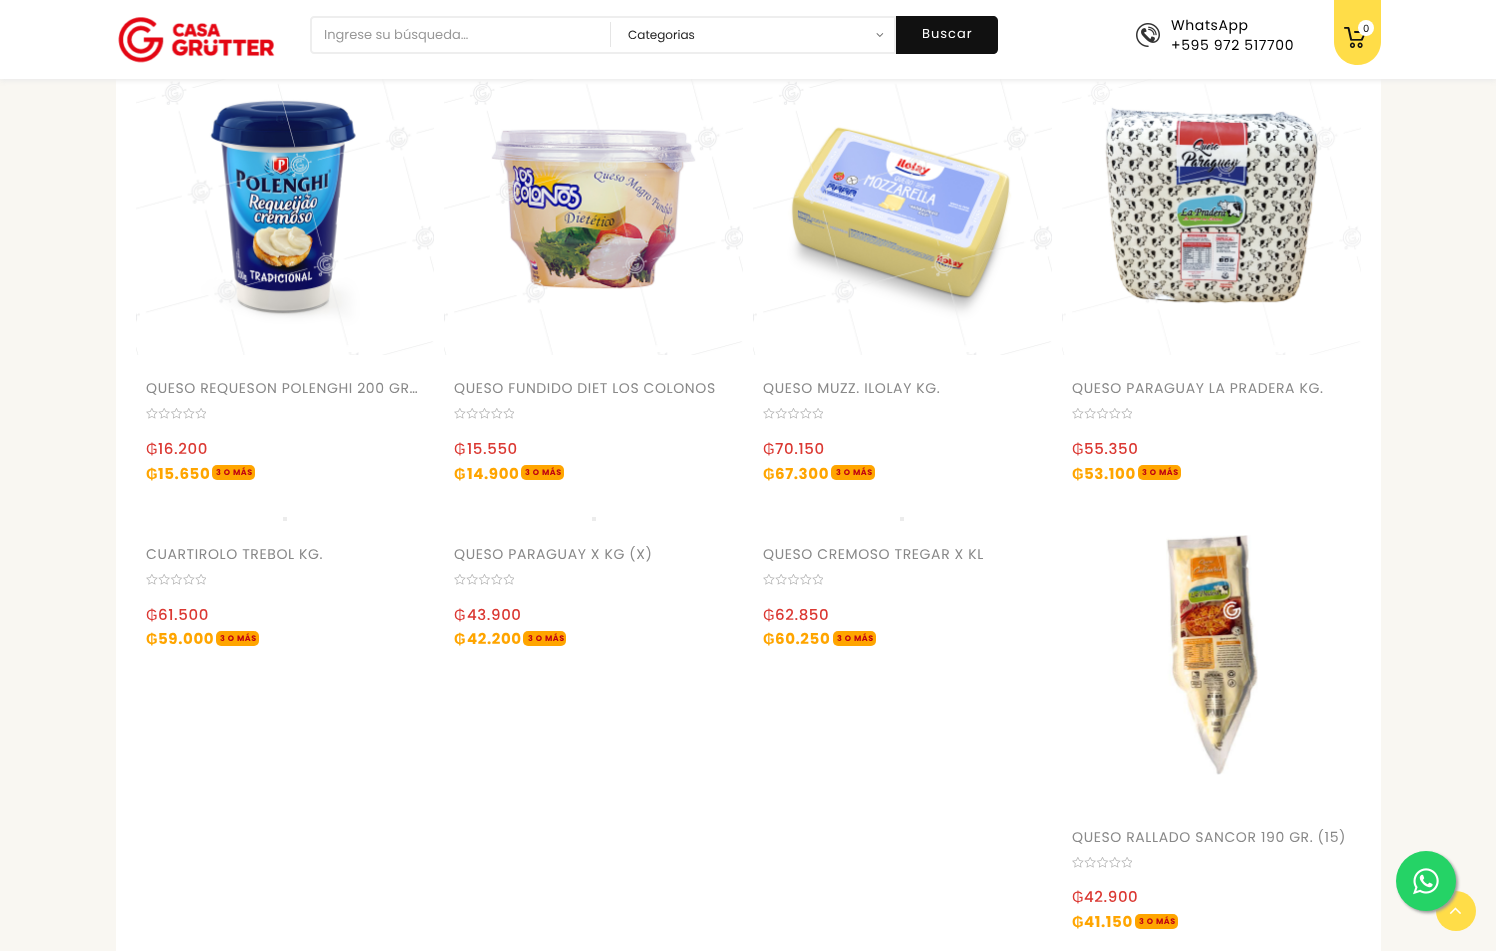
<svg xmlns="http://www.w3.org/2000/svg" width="1496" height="951">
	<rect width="100%" height="100%" fill="#F9F7F2" />
	<rect x="116" y="79" width="1265" height="872" fill="#FFFFFF" />
	<image x="136" y="79" width="298" height="276" href="assets/img5.png" />
	<image x="444" y="79" width="299" height="276" href="assets/img7.png" />
	<image x="753" y="79" width="299" height="276" href="assets/img8.png" />
	<image x="1062" y="79" width="299" height="276" href="assets/img9.png" />
	<rect x="0" y="2" width="1496" height="79" fill="#EBEBEB" filter="blur(2.5px)" />
	<rect x="0" y="0" width="1496" height="79" fill="#FFFFFF" />
	<image x="118" y="17" width="157" height="46" href="assets/img1.png" />
	<path d="M314 16H610V54H314C312 54 310 52 310 50V20C310 18 312 16 314 16ZM314 18H610V52H314C313 52 312 51 312 50V20C312 19 313 18 314 18Z" fill="#EEEEEE" fill-rule="evenodd" />
	<text x="324" y="39" font-family="Poppins" font-size="13" fill="#999999">Ingrese su búsqueda…</text>
	<rect x="610" y="22" width="1" height="25" fill="#E5E5E5" />
	<rect x="610" y="16" width="286" height="2" fill="#EEEEEE" />
	<rect x="894" y="16" width="2" height="38" fill="#EEEEEE" />
	<rect x="610" y="52" width="286" height="2" fill="#EEEEEE" />
	<text x="628" y="39" font-family="Poppins" font-size="12" fill="#222222">Categorias</text>
	<image x="876" y="33" width="8" height="4" href="assets/img2.png" />
	<path d="M896 16H993C996 16 998 18 998 21V49C998 52 996 54 993 54H896Z" fill="#111111" />
	<text x="922" y="38" font-family="Poppins" font-size="13" letter-spacing="1" fill="#FFFFFF">Buscar</text>
	<image x="1136" y="23" width="24" height="24" href="assets/img3.png" />
	<g font-family="Poppins" font-size="14" letter-spacing="0.6" fill="#000000">
		<text x="1171" y="30">WhatsApp</text>
		<text x="1171" y="50">+595 972 517700</text>
	</g>
	<path d="M1334 0H1381V41.5C1381 54.5 1370.5 65 1357.5 65C1344.5 65 1334 54.5 1334 41.5Z" fill="#FFDD48" />
	<image x="1344" y="27" width="21" height="21" href="assets/img4.png" />
	<circle cx="1366" cy="28" r="8" fill="#FFFFFF" />
	<text x="1363" y="32" font-family="Poppins" font-size="10" letter-spacing="1" fill="#000000">0</text>
	<text x="146" y="393" font-family="Poppins" font-size="14" letter-spacing="0.6" fill="#888888">QUESO REQUESON POLENGHI 200 GR…</text>
	<image x="146" y="408" width="60" height="11" href="assets/img6.png" />
	<text x="146" y="454" font-family="Liberation Sans" font-size="15" letter-spacing="0.6" fill="#DB3832">₲</text>
	<text x="158" y="454" font-family="Poppins" font-size="15" font-weight="500" letter-spacing="0.6" fill="#DB3832">16.200</text>
	<text x="146" y="479" font-family="Liberation Sans" font-size="15" font-weight="700" letter-spacing="0.6" fill="#FFA500">₲</text>
	<text x="158" y="479" font-family="Poppins" font-size="15" font-weight="700" letter-spacing="0.6" fill="#FFA500">15.650</text>
	<rect x="212" y="465" width="43" height="15" rx="5" fill="#FFA500" />
	<text x="216" y="475" font-family="Poppins" font-size="8" font-weight="700" letter-spacing="0.6" fill="#BF0411">3 O MÁS</text>
	<text x="454" y="393" font-family="Poppins" font-size="14" letter-spacing="0.6" fill="#888888">QUESO FUNDIDO DIET LOS COLONOS</text>
	<image x="454" y="408" width="60" height="11" href="assets/img6.png" />
	<text x="454" y="454" font-family="Liberation Sans" font-size="15" letter-spacing="0.6" fill="#DB3832">₲</text>
	<text x="467" y="454" font-family="Poppins" font-size="15" font-weight="500" letter-spacing="0.6" fill="#DB3832">15.550</text>
	<text x="454" y="479" font-family="Liberation Sans" font-size="15" font-weight="700" letter-spacing="0.6" fill="#FFA500">₲</text>
	<text x="467" y="479" font-family="Poppins" font-size="15" font-weight="700" letter-spacing="0.6" fill="#FFA500">14.900</text>
	<rect x="521" y="465" width="43" height="15" rx="5" fill="#FFA500" />
	<text x="525" y="475" font-family="Poppins" font-size="8" font-weight="700" letter-spacing="0.6" fill="#BF0411">3 O MÁS</text>
	<text x="763" y="393" font-family="Poppins" font-size="14" letter-spacing="0.6" fill="#888888">QUESO MUZZ. ILOLAY KG.</text>
	<image x="763" y="408" width="60" height="11" href="assets/img6.png" />
	<text x="763" y="454" font-family="Liberation Sans" font-size="15" letter-spacing="0.6" fill="#DB3832">₲</text>
	<text x="775" y="454" font-family="Poppins" font-size="15" font-weight="500" letter-spacing="0.6" fill="#DB3832">70.150</text>
	<text x="763" y="479" font-family="Liberation Sans" font-size="15" font-weight="700" letter-spacing="0.6" fill="#FFA500">₲</text>
	<text x="775" y="479" font-family="Poppins" font-size="15" font-weight="700" letter-spacing="0.6" fill="#FFA500">67.300</text>
	<rect x="831" y="465" width="44" height="15" rx="5" fill="#FFA500" />
	<text x="836" y="475" font-family="Poppins" font-size="8" font-weight="700" letter-spacing="0.6" fill="#BF0411">3 O MÁS</text>
	<text x="1072" y="393" font-family="Poppins" font-size="14" letter-spacing="0.6" fill="#888888">QUESO PARAGUAY LA PRADERA KG.</text>
	<image x="1072" y="408" width="60" height="11" href="assets/img6.png" />
	<text x="1072" y="454" font-family="Liberation Sans" font-size="15" letter-spacing="0.6" fill="#DB3832">₲</text>
	<text x="1084" y="454" font-family="Poppins" font-size="15" font-weight="500" letter-spacing="0.6" fill="#DB3832">55.350</text>
	<text x="1072" y="479" font-family="Liberation Sans" font-size="15" font-weight="700" letter-spacing="0.6" fill="#FFA500">₲</text>
	<text x="1084" y="479" font-family="Poppins" font-size="15" font-weight="700" letter-spacing="0.6" fill="#FFA500">53.100</text>
	<rect x="1138" y="465" width="43" height="15" rx="5" fill="#FFA500" />
	<text x="1142" y="475" font-family="Poppins" font-size="8" font-weight="700" letter-spacing="0.6" fill="#BF0411">3 O MÁS</text>
	<rect x="283" y="517" width="4" height="4" fill="#ECECEC" />
	<text x="146" y="559" font-family="Poppins" font-size="14" letter-spacing="0.6" fill="#888888">CUARTIROLO TREBOL KG.</text>
	<image x="146" y="574" width="60" height="11" href="assets/img6.png" />
	<text x="146" y="620" font-family="Liberation Sans" font-size="15" letter-spacing="0.6" fill="#DB3832">₲</text>
	<text x="158" y="620" font-family="Poppins" font-size="15" font-weight="500" letter-spacing="0.6" fill="#DB3832">61.500</text>
	<text x="146" y="644" font-family="Liberation Sans" font-size="15" font-weight="700" letter-spacing="0.6" fill="#FFA500">₲</text>
	<text x="158" y="644" font-family="Poppins" font-size="15" font-weight="700" letter-spacing="0.6" fill="#FFA500">59.000</text>
	<rect x="216" y="631" width="43" height="15" rx="5" fill="#FFA500" />
	<text x="220" y="641" font-family="Poppins" font-size="8" font-weight="700" letter-spacing="0.6" fill="#BF0411">3 O MÁS</text>
	<rect x="592" y="517" width="4" height="4" fill="#ECECEC" />
	<text x="454" y="559" font-family="Poppins" font-size="14" letter-spacing="0.6" fill="#888888">QUESO PARAGUAY X KG (X)</text>
	<image x="454" y="574" width="60" height="11" href="assets/img6.png" />
	<text x="454" y="620" font-family="Liberation Sans" font-size="15" letter-spacing="0.6" fill="#DB3832">₲</text>
	<text x="467" y="620" font-family="Poppins" font-size="15" font-weight="500" letter-spacing="0.6" fill="#DB3832">43.900</text>
	<text x="454" y="644" font-family="Liberation Sans" font-size="15" font-weight="700" letter-spacing="0.6" fill="#FFA500">₲</text>
	<text x="467" y="644" font-family="Poppins" font-size="15" font-weight="700" letter-spacing="0.6" fill="#FFA500">42.200</text>
	<rect x="523" y="631" width="43" height="15" rx="5" fill="#FFA500" />
	<text x="528" y="641" font-family="Poppins" font-size="8" font-weight="700" letter-spacing="0.6" fill="#BF0411">3 O MÁS</text>
	<rect x="900" y="517" width="4" height="4" fill="#ECECEC" />
	<text x="763" y="559" font-family="Poppins" font-size="14" letter-spacing="0.6" fill="#888888">QUESO CREMOSO TREGAR X KL</text>
	<image x="763" y="574" width="60" height="11" href="assets/img6.png" />
	<text x="763" y="620" font-family="Liberation Sans" font-size="15" letter-spacing="0.6" fill="#DB3832">₲</text>
	<text x="775" y="620" font-family="Poppins" font-size="15" font-weight="500" letter-spacing="0.6" fill="#DB3832">62.850</text>
	<text x="763" y="644" font-family="Liberation Sans" font-size="15" font-weight="700" letter-spacing="0.6" fill="#FFA500">₲</text>
	<text x="775" y="644" font-family="Poppins" font-size="15" font-weight="700" letter-spacing="0.6" fill="#FFA500">60.250</text>
	<rect x="833" y="631" width="43" height="15" rx="5" fill="#FFA500" />
	<text x="837" y="641" font-family="Poppins" font-size="8" font-weight="700" letter-spacing="0.6" fill="#BF0411">3 O MÁS</text>
	<image x="1166" y="535" width="92" height="240" href="assets/img10.png" />
	<text x="1072" y="842" font-family="Poppins" font-size="14" letter-spacing="0.6" fill="#888888">QUESO RALLADO SANCOR 190 GR. (15)</text>
	<image x="1072" y="857" width="60" height="11" href="assets/img6.png" />
	<circle cx="1225" cy="792" r="18" fill="#FFFFFF" />
	<text x="1072" y="902" font-family="Liberation Sans" font-size="15" letter-spacing="0.6" fill="#DB3832">₲</text>
	<text x="1084" y="902" font-family="Poppins" font-size="15" font-weight="500" letter-spacing="0.6" fill="#DB3832">42.900</text>
	<text x="1072" y="927" font-family="Liberation Sans" font-size="15" font-weight="700" letter-spacing="0.6" fill="#FFA500">₲</text>
	<text x="1084" y="927" font-family="Poppins" font-size="15" font-weight="700" letter-spacing="0.6" fill="#FFA500">41.150</text>
	<rect x="1135" y="914" width="43" height="15" rx="5" fill="#FFA500" />
	<text x="1139" y="924" font-family="Poppins" font-size="8" font-weight="700" letter-spacing="0.6" fill="#BF0411">3 O MÁS</text>
	<circle cx="1456" cy="911" r="20" fill="#FFDD48" />
	<image x="1449" y="907" width="12" height="7" href="assets/img12.png" />
	<rect x="1398" y="853" width="60" height="60" rx="30" fill="#999999" filter="blur(1.5px)" />
	<circle cx="1426" cy="881" r="30" fill="#25D366" />
	<image x="1413" y="868" width="26" height="27" href="assets/img11.png" />
</svg>
